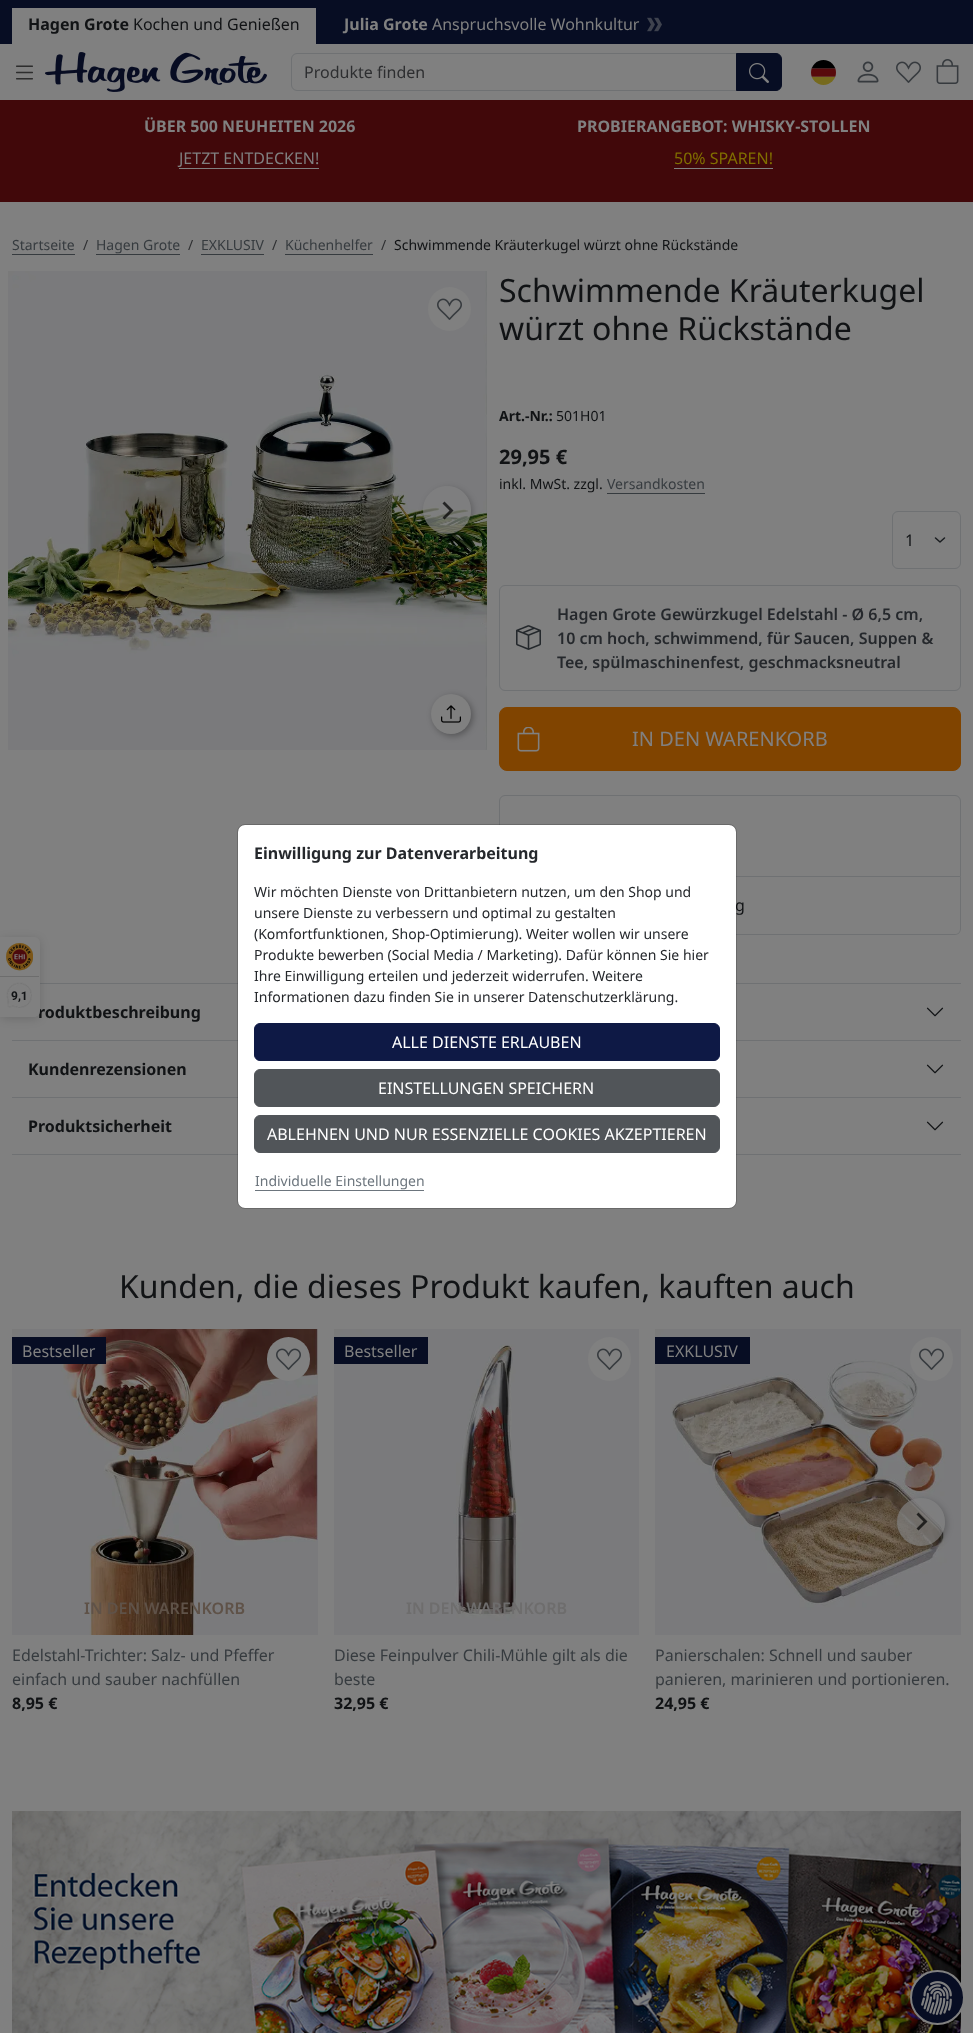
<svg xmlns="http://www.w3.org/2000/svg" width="973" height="2033">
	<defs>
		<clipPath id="clip1"><path d="M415 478H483V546H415ZM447 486C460.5 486 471 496.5 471 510C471 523.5 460.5 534 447 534C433.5 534 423 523.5 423 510C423 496.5 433.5 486 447 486Z" clip-rule="evenodd" /></clipPath>
		<clipPath id="clip2"><path d="M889 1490H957V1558H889ZM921 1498C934.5 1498 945 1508.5 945 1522C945 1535.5 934.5 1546 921 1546C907.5 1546 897 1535.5 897 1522C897 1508.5 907.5 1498 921 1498Z" clip-rule="evenodd" /></clipPath>
	</defs>
	<rect width="100%" height="100%" fill="#808080" />
	<rect x="0" y="0" width="973" height="44" fill="#070D23" />
	<rect x="12" y="8" width="304" height="36" fill="#808080" />
	<text x="28" y="30" font-family="Noto Sans" font-size="16" font-weight="700" fill="#111315">Hagen Grote</text>
	<text x="133" y="30" font-family="Noto Sans" font-size="16" fill="#111315">Kochen und Genießen</text>
	<text x="344" y="30" font-family="Noto Sans" font-size="16" font-weight="700" fill="#808080">Julia Grote</text>
	<text x="432" y="30" font-family="Noto Sans" font-size="16" fill="#808080">Anspruchsvolle Wohnkultur</text>
	<image x="647" y="17" width="15" height="15" href="assets/img1.png" />
	<image x="16" y="65" width="17" height="15" href="assets/img2.png" />
	<image x="45" y="52" width="222" height="40" href="assets/img3.png" />
	<path d="M297 53.5H736.5V90.5H297C294 90.5 291.5 88 291.5 85V59C291.5 56 294 53.5 297 53.5Z" fill="none" stroke="#6F7173" />
	<text x="304" y="78" font-family="Noto Sans" font-size="16" fill="#2D2E30">Produkte finden</text>
	<path d="M736.5 53.5H776C779 53.5 781.5 56 781.5 59V85C781.5 88 779 90.5 776 90.5H736.5Z" fill="#070D23" stroke="#070D23" />
	<image x="749" y="63" width="20" height="20" href="assets/img4.png" />
	<image x="811" y="60" width="25" height="25" href="assets/img5.png" />
	<image x="857" y="61" width="22" height="22" href="assets/img6.png" />
	<image x="896" y="61" width="25" height="22" href="assets/img7.png" />
	<image x="936" y="59" width="23" height="25" href="assets/img8.png" />
	<rect x="0" y="100" width="973" height="102" fill="#41080A" />
	<text x="144" y="132" font-family="Noto Sans" font-size="16" font-weight="700" fill="#808080">ÜBER 500 NEUHEITEN 2026</text>
	<text x="179" y="164" font-family="Noto Sans" font-size="16" fill="#808080">JETZT ENTDECKEN!</text>
	<rect x="179" y="168" width="140" height="1" fill="#808080" />
	<text x="577" y="132" font-family="Noto Sans" font-size="16" font-weight="700" fill="#808080">PROBIERANGEBOT: WHISKY-STOLLEN</text>
	<text x="674" y="164" font-family="Noto Sans" font-size="16" fill="#806F00">50% SPAREN!</text>
	<rect x="674" y="168" width="99" height="1" fill="#808080" />
	<text x="12" y="250" font-family="Noto Sans" font-size="14" fill="#363B3F">Startseite</text>
	<rect x="12" y="254" width="63" height="1" fill="#363B3F" />
	<text x="83" y="250" font-family="Noto Sans" font-size="14" fill="#2D2E30">/</text>
	<text x="96" y="250" font-family="Noto Sans" font-size="14" fill="#363B3F">Hagen Grote</text>
	<rect x="96" y="254" width="84" height="1" fill="#363B3F" />
	<text x="188" y="250" font-family="Noto Sans" font-size="14" fill="#2D2E30">/</text>
	<text x="201" y="250" font-family="Noto Sans" font-size="14" fill="#363B3F">EXKLUSIV</text>
	<rect x="201" y="254" width="63" height="1" fill="#363B3F" />
	<text x="272" y="250" font-family="Noto Sans" font-size="14" fill="#2D2E30">/</text>
	<text x="285" y="250" font-family="Noto Sans" font-size="14" fill="#363B3F">Küchenhelfer</text>
	<rect x="285" y="254" width="88" height="1" fill="#363B3F" />
	<text x="381" y="250" font-family="Noto Sans" font-size="14" fill="#2D2E30">/</text>
	<text x="394" y="250" font-family="Noto Sans" font-size="14" fill="#111315">Schwimmende Kräuterkugel würzt ohne Rückstände</text>
	<image x="8" y="271" width="479" height="479" href="assets/img9.png" />
	<g clip-path="url(#clip1)">
		<rect x="425" y="488" width="48" height="48" rx="24" fill="#000000" fill-opacity="0.21" filter="blur(3px)" />
	</g>
	<circle cx="447" cy="510" r="24" fill="#808080" fill-opacity="0.7" />
	<path d="M444.5 501.5L442.5 503.5L449.5 510.5L442.5 517.5L444.5 519.5L453.5 510.5Z" fill="#000000" fill-opacity="0.7" />
	<rect x="428" y="287" width="43" height="44" rx="21.5" fill="#808080" />
	<image x="437" y="298" width="25" height="22" href="assets/img7.png" />
	<rect x="433" y="696" width="40" height="40" rx="20" fill="#000000" fill-opacity="0.3" filter="blur(3px)" />
	<circle cx="451" cy="714" r="20" fill="#808080" />
	<image x="441" y="705" width="20" height="18" href="assets/img10.png" />
	<g font-family="Noto Sans" font-size="32" fill="#111315">
		<text x="499" y="302">Schwimmende Kräuterkugel</text>
		<text x="499" y="340">würzt ohne Rückstände</text>
	</g>
	<text x="499" y="421" font-family="Noto Sans" font-size="14" font-weight="700" fill="#111315">Art.-Nr.:</text>
	<text x="556" y="421" font-family="Noto Sans" font-size="14" fill="#111315">501H01</text>
	<text x="499" y="464" font-family="Noto Sans" font-size="20" font-weight="700" fill="#111315">29,95 €</text>
	<text x="499" y="489" font-family="Noto Sans" font-size="14" fill="#111315">inkl. MwSt. zzgl.</text>
	<text x="607" y="489" font-family="Noto Sans" font-size="14" fill="#363B3F">Versandkosten</text>
	<rect x="607" y="493" width="98" height="1" fill="#363B3F" />
	<path d="M935.5 538L940 542L944.5 538" fill="none" stroke="#1A1D20" stroke-width="1.5" stroke-linecap="round" stroke-linejoin="round" />
	<rect x="892.5" y="511.5" width="68" height="57" rx="5.5" fill="none" stroke="#6F7173" />
	<text x="905" y="546" font-family="Noto Sans" font-size="16" fill="#111315">1</text>
	<rect x="499.5" y="585.5" width="461" height="105" rx="5.5" fill="none" stroke="#6F7173" />
	<text x="557" y="620" font-family="Noto Sans" font-size="16" font-weight="600" fill="#25282C">Hagen Grote Gewürzkugel Edelstahl - Ø 6,5 cm,</text>
	<image x="516" y="625" width="25" height="25" href="assets/img11.png" />
	<g font-family="Noto Sans" font-size="16" font-weight="600" fill="#25282C">
		<text x="557" y="644">10 cm hoch, schwimmend, für Saucen, Suppen &amp;</text>
		<text x="557" y="668">Tee, spülmaschinenfest, geschmacksneutral</text>
	</g>
	<rect x="499.5" y="707.5" width="461" height="63" rx="7.5" fill="#804400" stroke="#804400" />
	<image x="517" y="727" width="23" height="25" href="assets/img12.png" />
	<text x="632" y="746" font-family="Noto Sans" font-size="20" fill="#808080">IN DEN WARENKORB</text>
	<path d="M505 795.5H955C958 795.5 960.5 798 960.5 801V876.5H499.5V801C499.5 798 502 795.5 505 795.5Z" fill="none" stroke="#6F7173" />
	<path d="M499 877H961V929C961 932 958 935 955 935H505C502 935 499 932 499 929ZM500 877H960V929C960 932 958 934 955 934H505C502 934 500 932 500 929Z" fill="#6F7173" fill-rule="evenodd" />
	<text x="735" y="911" font-family="Noto Sans" font-size="16" fill="#111315">g</text>
	<rect x="40" y="983" width="921" height="1" fill="#6F7173" />
	<rect x="12" y="1154" width="949" height="1" fill="#6F7173" />
	<rect x="12" y="1040" width="949" height="1" fill="#6F7173" />
	<text x="38" y="1018" font-family="Noto Sans" font-size="16" font-weight="700" fill="#111315">roduktbeschreibung</text>
	<image x="926" y="1007" width="18" height="10" href="assets/img13.png" />
	<rect x="12" y="1097" width="949" height="1" fill="#6F7173" />
	<text x="28" y="1075" font-family="Noto Sans" font-size="16" font-weight="700" fill="#111315">Kundenrezensionen</text>
	<image x="926" y="1064" width="18" height="10" href="assets/img13.png" />
	<text x="28" y="1132" font-family="Noto Sans" font-size="16" font-weight="700" fill="#111315">Produktsicherheit</text>
	<image x="926" y="1121" width="18" height="10" href="assets/img13.png" />
	<text x="119" y="1298" font-family="Noto Sans" font-size="32" fill="#111315">Kunden, die dieses Produkt kaufen, kauften auch</text>
	<image x="12" y="1329" width="306" height="306" href="assets/img14.png" />
	<rect x="12" y="1337" width="94" height="27" fill="#070D23" />
	<text x="22" y="1357" font-family="Noto Sans" font-size="16" fill="#808080">Bestseller</text>
	<text x="84" y="1614" font-family="Noto Sans" font-size="16" font-weight="600" fill="#5F5248">IN DEN WARENKORB</text>
	<rect x="267" y="1337" width="43" height="44" rx="21.5" fill="#808080" />
	<image x="276" y="1348" width="25" height="22" href="assets/img7.png" />
	<g font-family="Noto Sans" font-size="16" fill="#363B3F">
		<text x="12" y="1661">Edelstahl-Trichter: Salz- und Pfeffer</text>
		<text x="12" y="1685">einfach und sauber nachfüllen</text>
	</g>
	<text x="12" y="1709" font-family="Noto Sans" font-size="16" font-weight="700" fill="#111315">8,95 €</text>
	<image x="334" y="1329" width="305" height="306" href="assets/img15.png" />
	<rect x="334" y="1337" width="94" height="27" fill="#070D23" />
	<text x="344" y="1357" font-family="Noto Sans" font-size="16" fill="#808080">Bestseller</text>
	<text x="406" y="1614" font-family="Noto Sans" font-size="16" font-weight="600" fill="#6E6D6D">IN DEN WARENKORB</text>
	<rect x="588" y="1337" width="43" height="44" rx="21.5" fill="#808080" />
	<image x="597" y="1348" width="25" height="22" href="assets/img7.png" />
	<g font-family="Noto Sans" font-size="16" fill="#363B3F">
		<text x="334" y="1661">Diese Feinpulver Chili-Mühle gilt als die</text>
		<text x="334" y="1685">beste</text>
	</g>
	<text x="334" y="1709" font-family="Noto Sans" font-size="16" font-weight="700" fill="#111315">32,95 €</text>
	<image x="655" y="1329" width="306" height="306" href="assets/img16.png" />
	<rect x="655" y="1337" width="95" height="27" fill="#070D23" />
	<text x="666" y="1357" font-family="Noto Sans" font-size="16" fill="#808080">EXKLUSIV</text>
	<rect x="910" y="1337" width="43" height="44" rx="21.5" fill="#808080" />
	<image x="919" y="1348" width="25" height="22" href="assets/img7.png" />
	<g font-family="Noto Sans" font-size="16" fill="#363B3F">
		<text x="655" y="1661">Panierschalen: Schnell und sauber</text>
		<text x="655" y="1685">panieren, marinieren und portionieren.</text>
	</g>
	<text x="655" y="1709" font-family="Noto Sans" font-size="16" font-weight="700" fill="#111315">24,95 €</text>
	<g clip-path="url(#clip2)">
		<rect x="899" y="1500" width="48" height="48" rx="24" fill="#000000" fill-opacity="0.21" filter="blur(3px)" />
	</g>
	<circle cx="921" cy="1522" r="24" fill="#808080" fill-opacity="0.7" />
	<path d="M918.5 1512.5L916.5 1514.5L923.5 1521.5L916.5 1528.5L918.5 1530.5L927.5 1521.5Z" fill="#000000" fill-opacity="0.7" />
	<image x="12" y="1811" width="949" height="222" href="assets/img17.png" />
	<rect x="0" y="939" width="40" height="80" rx="6" fill="#000000" fill-opacity="0.15" filter="blur(5px)" />
	<path d="M0 937H34C37.5 937 40 939.5 40 943V1011C40 1014.5 37.5 1017 34 1017H0Z" fill="#808080" />
	<image x="6" y="943" width="27" height="28" href="assets/img18.png" />
	<rect x="0" y="976" width="39" height="1" fill="#6D6D6D" />
	<image x="6" y="982" width="26" height="26" href="assets/img19.png" />
	<text x="11" y="1000" font-family="Roboto" font-size="12" font-weight="700" fill="#111315">9,1</text>
	<rect x="238" y="825" width="498" height="383" rx="7" fill="#FFFFFF" />
	<rect x="237.5" y="824.5" width="499" height="384" rx="7.5" fill="none" stroke="#000000" stroke-opacity="0.18" />
	<text x="254" y="859" font-family="Noto Sans" font-size="16" font-weight="700" fill="#25282C">Einwilligung zur Datenverarbeitung</text>
	<g font-family="Noto Sans" font-size="14" fill="#25282C">
		<text x="254" y="897">Wir möchten Dienste von Drittanbietern nutzen, um den Shop und</text>
		<text x="254" y="918">unsere Dienste zu verbessern und optimal zu gestalten</text>
		<text x="254" y="939">(Komfortfunktionen, Shop-Optimierung). Weiter wollen wir unsere</text>
		<text x="254" y="960">Produkte bewerben (Social Media / Marketing). Dafür können Sie hier</text>
		<text x="254" y="981">Ihre Einwilligung erteilen und jederzeit widerrufen. Weitere</text>
		<text x="254" y="1002">Informationen dazu finden Sie in unserer Datenschutzerklärung.</text>
	</g>
	<rect x="254.5" y="1023.5" width="465" height="37" rx="5.5" fill="#0E1945" stroke="#0E1945" />
	<text x="392" y="1048" font-family="Noto Sans" font-size="16" fill="#FFFFFF">ALLE DIENSTE ERLAUBEN</text>
	<rect x="254.5" y="1069.5" width="465" height="37" rx="5.5" fill="#515559" stroke="#515559" />
	<text x="378" y="1094" font-family="Noto Sans" font-size="16" fill="#FFFFFF">EINSTELLUNGEN SPEICHERN</text>
	<rect x="254.5" y="1115.5" width="465" height="37" rx="5.5" fill="#515559" stroke="#515559" />
	<text x="267" y="1140" font-family="Noto Sans" font-size="16" fill="#FFFFFF">ABLEHNEN UND NUR ESSENZIELLE COOKIES AKZEPTIEREN</text>
	<text x="255" y="1186" font-family="Noto Sans" font-size="14" fill="#6C757D">Individuelle Einstellungen</text>
	<rect x="255" y="1190" width="169" height="1" fill="#6C757D" />
	<circle cx="937.5" cy="1997.5" r="26.5" fill="#070D23" stroke="#808080" stroke-width="2" />
	<image x="921" y="1981" width="31" height="34" href="assets/img20.png" />
</svg>
